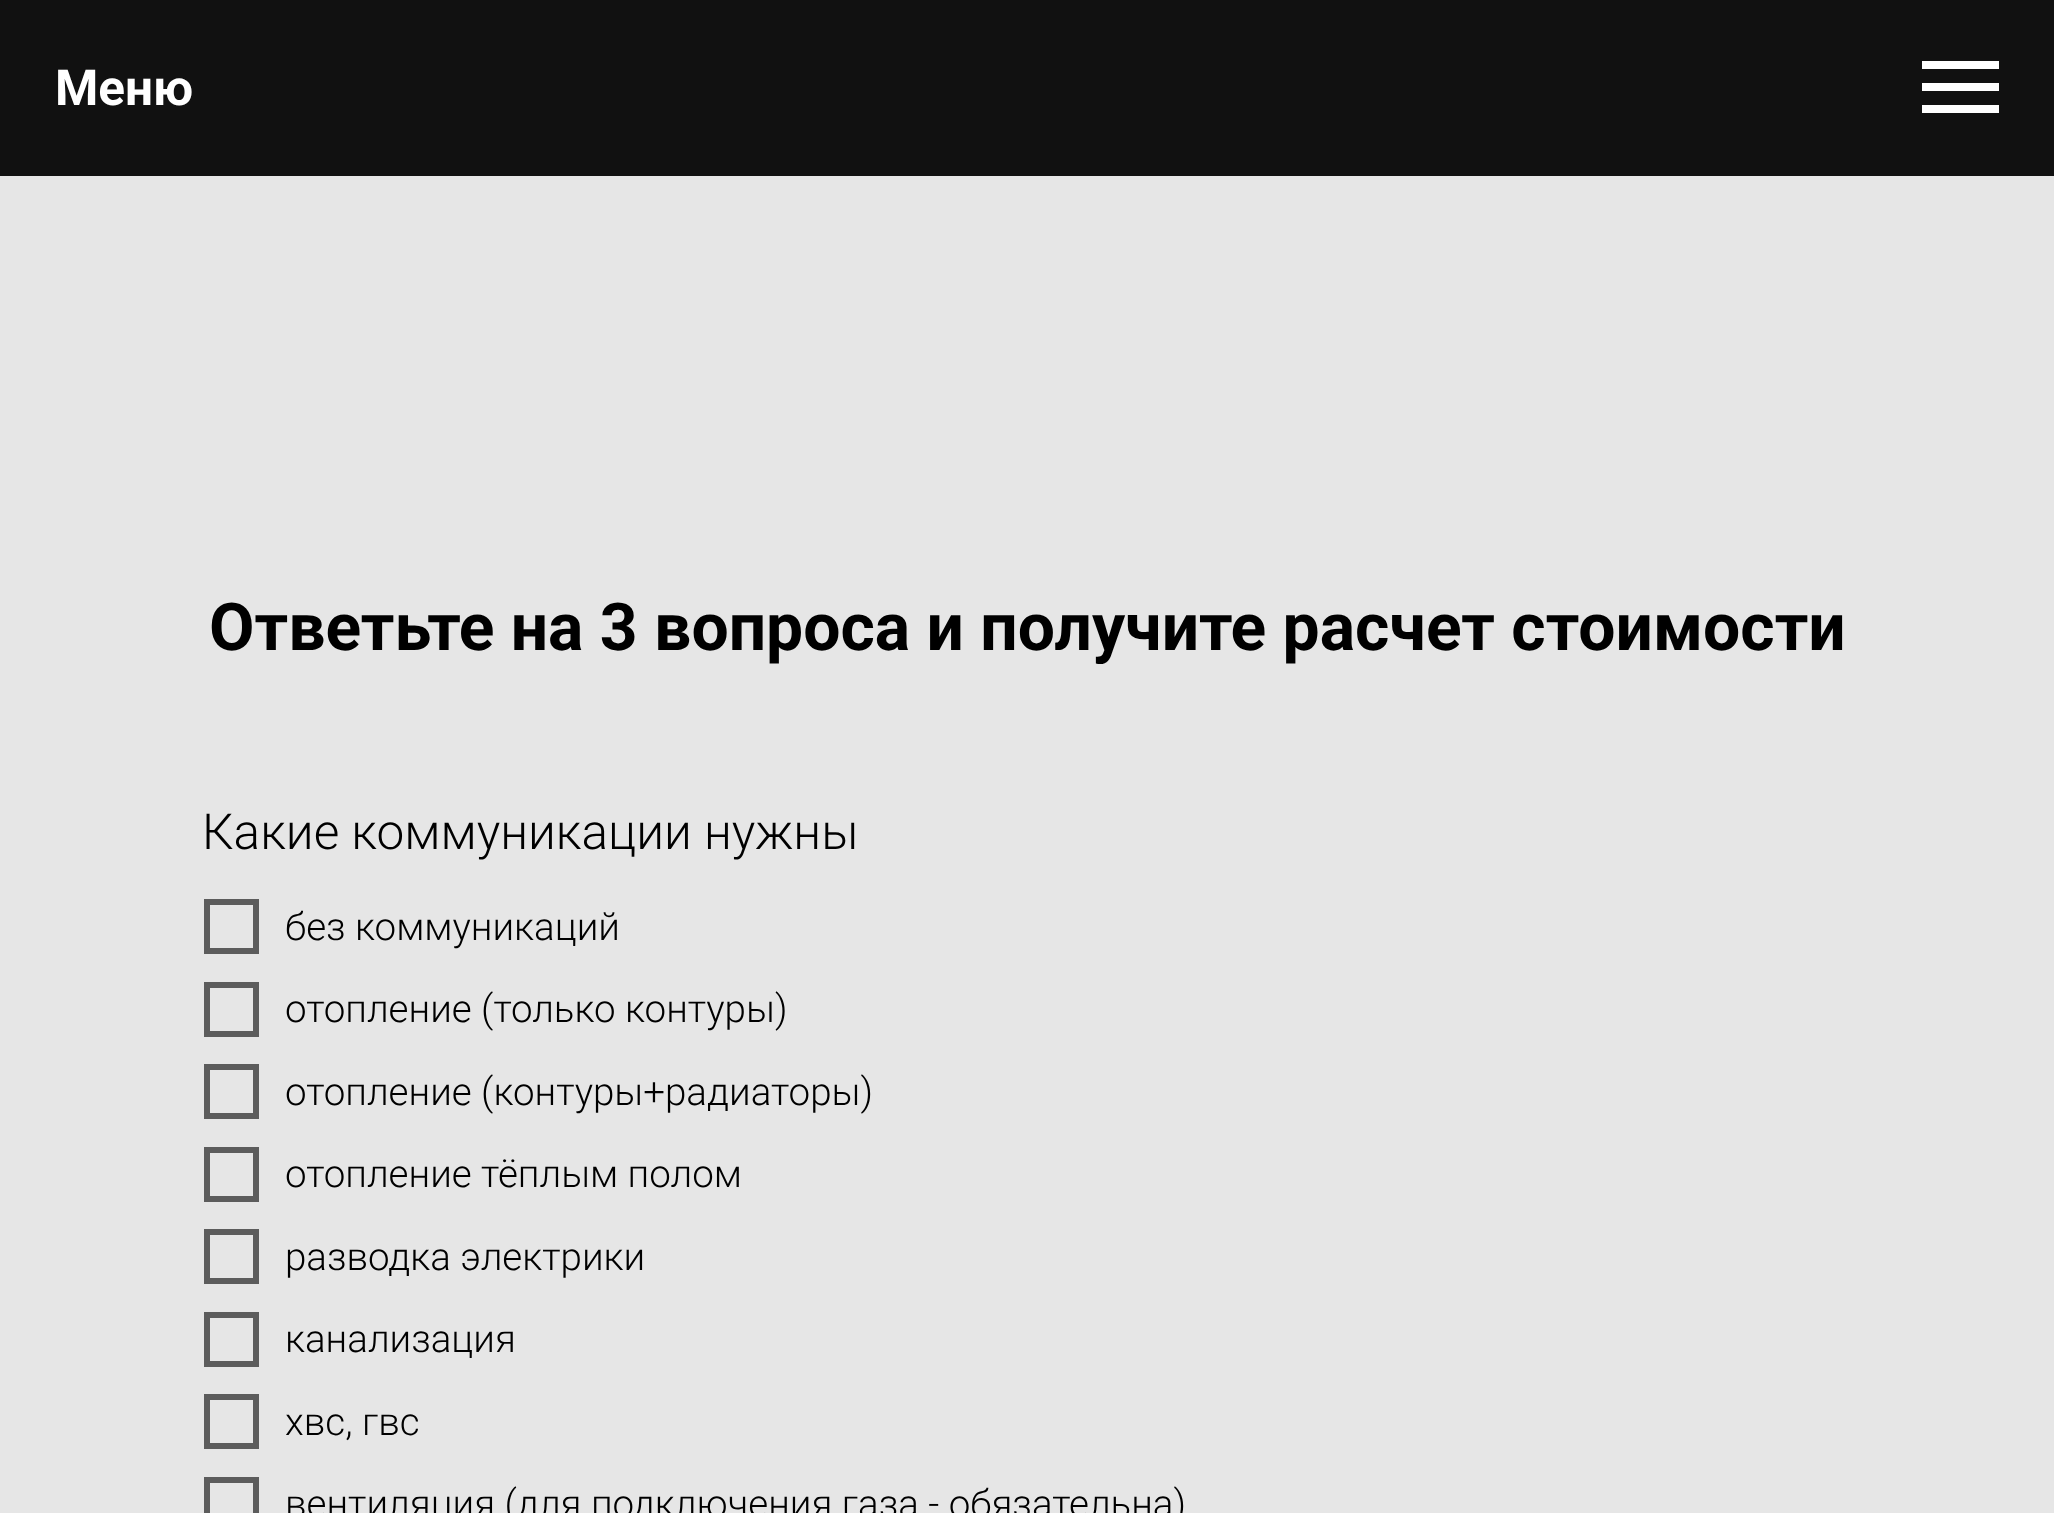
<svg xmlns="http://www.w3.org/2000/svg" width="2054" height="1513">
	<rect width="100%" height="100%" fill="#E6E6E6" />
	<rect x="0" y="0" width="2054" height="176" fill="#111111" />
	<text x="55" y="105" font-family="Roboto" font-size="49.5" font-weight="700" fill="#FFFFFF">Меню</text>
	<rect x="1922" y="61" width="77" height="8" fill="#FFFFFF" />
	<rect x="1922" y="83" width="77" height="8" fill="#FFFFFF" />
	<rect x="1922" y="105" width="77" height="8" fill="#FFFFFF" />
	<text x="209" y="650" font-family="Roboto" font-size="66" font-weight="700" fill="#000000">Ответьте на 3 вопроса и получите расчет стоимости</text>
	<text x="202" y="849" font-family="Roboto" font-size="49.5" font-weight="300" fill="#000000">Какие коммуникации нужны</text>
	<rect x="207" y="902" width="49" height="49" fill="none" stroke="#5C5C5C" stroke-width="6" />
	<text x="285" y="940" font-family="Roboto" font-size="38.5" font-weight="300" fill="#000000">без коммуникаций</text>
	<rect x="207" y="985" width="49" height="49" fill="none" stroke="#5C5C5C" stroke-width="6" />
	<text x="285" y="1022" font-family="Roboto" font-size="38.5" font-weight="300" fill="#000000">отопление (только контуры)</text>
	<rect x="207" y="1067" width="49" height="49" fill="none" stroke="#5C5C5C" stroke-width="6" />
	<text x="285" y="1105" font-family="Roboto" font-size="38.5" font-weight="300" fill="#000000">отопление (контуры+радиаторы)</text>
	<rect x="207" y="1150" width="49" height="49" fill="none" stroke="#5C5C5C" stroke-width="6" />
	<text x="285" y="1187" font-family="Roboto" font-size="38.5" font-weight="300" fill="#000000">отопление тёплым полом</text>
	<rect x="207" y="1232" width="49" height="49" fill="none" stroke="#5C5C5C" stroke-width="6" />
	<text x="285" y="1270" font-family="Roboto" font-size="38.5" font-weight="300" fill="#000000">разводка электрики</text>
	<rect x="207" y="1315" width="49" height="49" fill="none" stroke="#5C5C5C" stroke-width="6" />
	<text x="285" y="1352" font-family="Roboto" font-size="38.5" font-weight="300" fill="#000000">канализация</text>
	<rect x="207" y="1397" width="49" height="49" fill="none" stroke="#5C5C5C" stroke-width="6" />
	<text x="285" y="1435" font-family="Roboto" font-size="38.5" font-weight="300" fill="#000000">хвс, гвс</text>
	<rect x="207" y="1480" width="49" height="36" fill="none" stroke="#5C5C5C" stroke-width="6" />
	<text x="285" y="1517" font-family="Roboto" font-size="38.5" font-weight="300" fill="#000000">вентиляция (для подключения газа - обязательна)</text>
</svg>
